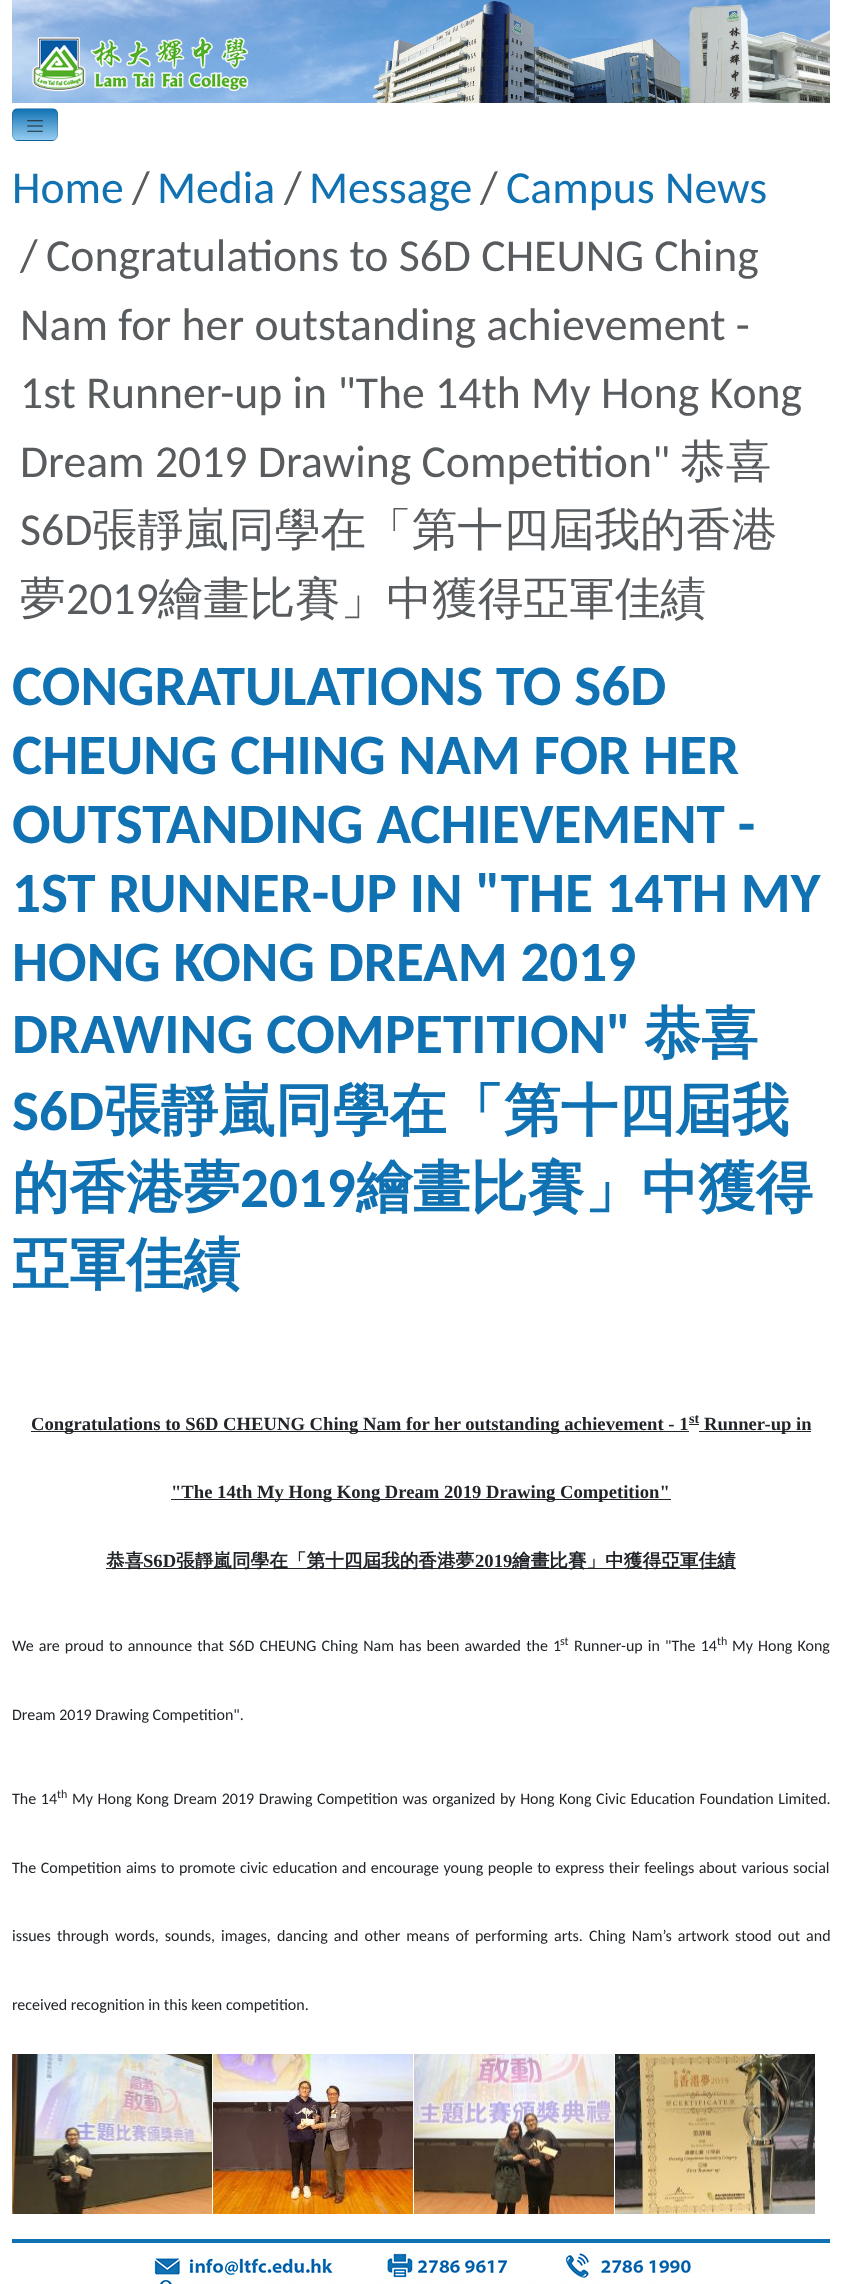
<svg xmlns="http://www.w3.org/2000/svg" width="842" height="2284">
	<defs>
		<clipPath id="clip1"><rect x="12" y="108" width="46" height="33" rx="6" /></clipPath>
		<linearGradient id="g1" gradientUnits="userSpaceOnUse" x1="35" y1="78" x2="35" y2="109"><stop offset="0" stop-color="#1072B3" /><stop offset="1" stop-color="#95CCF1" /></linearGradient>
		<linearGradient id="g2" gradientUnits="userSpaceOnUse" x1="35" y1="109" x2="35" y2="140"><stop offset="0" stop-color="#1072B3" /><stop offset="1" stop-color="#95CCF1" /></linearGradient>
		<linearGradient id="g3" gradientUnits="userSpaceOnUse" x1="35" y1="140" x2="35" y2="171"><stop offset="0" stop-color="#1072B3" /><stop offset="1" stop-color="#95CCF1" /></linearGradient>
	</defs>
	<rect width="100%" height="100%" fill="#FFFFFF" />
	<image x="12" y="0" width="818" height="103" href="assets/img1.png" />
	<g clip-path="url(#clip1)">
		<rect x="12" y="108" width="46" height="1" fill="url(#g1)" />
		<rect x="12" y="109" width="46" height="31" fill="url(#g2)" />
		<rect x="12" y="140" width="46" height="1" fill="url(#g3)" />
	</g>
	<rect x="12.5" y="108.5" width="45" height="32" rx="5.5" fill="none" stroke="#000000" stroke-opacity="0.15" />
	<image x="27" y="120" width="16" height="12" href="assets/img2.png" />
	<text x="12" y="203" font-family="Carlito" font-size="45.7" fill="#1072B3">Home</text>
	<text x="132" y="203" font-family="Carlito" font-size="45.7" fill="#595C5F">/</text>
	<text x="157" y="203" font-family="Carlito" font-size="45.7" fill="#1072B3">Media</text>
	<text x="284" y="203" font-family="Carlito" font-size="45.7" fill="#595C5F">/</text>
	<text x="309" y="203" font-family="Carlito" font-size="45.7" fill="#1072B3">Message</text>
	<text x="480" y="203" font-family="Carlito" font-size="45.7" fill="#595C5F">/</text>
	<text x="506" y="203" font-family="Carlito" font-size="45.7" fill="#1072B3">Campus News</text>
	<g font-family="Carlito" font-size="45.7" fill="#595C5F">
		<text x="20" y="271">/</text>
		<text x="46" y="271">Congratulations to S6D CHEUNG Ching</text>
		<text x="20" y="340">Nam for her outstanding achievement -</text>
		<text x="20" y="408">1st Runner-up in "The 14th My Hong Kong</text>
		<text x="20" y="477">Dream 2019 Drawing Competition"</text>
	</g>
	<text x="680" y="477" font-family="WenQuanYi Zen Hei" font-size="45.7" font-weight="500" fill="#595C5F">恭喜</text>
	<text x="20" y="545" font-family="Carlito" font-size="45.7" fill="#595C5F">S6D</text>
	<g font-family="WenQuanYi Zen Hei" font-size="45.7" font-weight="500" fill="#595C5F">
		<text x="92" y="545">張靜嵐同學在「第十四屆我的香港</text>
		<text x="20" y="614">夢</text>
	</g>
	<text x="66" y="614" font-family="Carlito" font-size="45.7" fill="#595C5F">2019</text>
	<text x="158" y="614" font-family="WenQuanYi Zen Hei" font-size="45.7" font-weight="500" fill="#595C5F">繪畫比賽」中獲得亞軍佳績</text>
	<g font-family="Carlito" font-size="57.1" font-weight="700" fill="#1072B3">
		<text x="12" y="705">CONGRATULATIONS TO S6D</text>
		<text x="12" y="774">CHEUNG CHING NAM FOR HER</text>
		<text x="12" y="843">OUTSTANDING ACHIEVEMENT -</text>
		<text x="12" y="912">1ST RUNNER-UP IN "THE 14TH MY</text>
		<text x="12" y="981">HONG KONG DREAM 2019</text>
		<text x="12" y="1053">DRAWING COMPETITION"</text>
	</g>
	<text x="644" y="1053" font-family="WenQuanYi Zen Hei" font-size="57.1" font-weight="700" fill="#1072B3">恭喜</text>
	<text x="12" y="1130" font-family="Carlito" font-size="57.1" font-weight="700" fill="#1072B3">S6D</text>
	<g font-family="WenQuanYi Zen Hei" font-size="57.1" font-weight="700" fill="#1072B3">
		<text x="104" y="1130">張靜嵐同學在「第十四屆我</text>
		<text x="12" y="1207">的香港夢</text>
	</g>
	<text x="240" y="1207" font-family="Carlito" font-size="57.1" font-weight="700" fill="#1072B3">2019</text>
	<g font-family="WenQuanYi Zen Hei" font-size="57.1" font-weight="700" fill="#1072B3">
		<text x="356" y="1207">繪畫比賽」中獲得</text>
		<text x="12" y="1284">亞軍佳績</text>
	</g>
	<rect x="31" y="1431" width="658" height="1" fill="#212529" />
	<text x="31" y="1430" font-family="Liberation Serif" font-size="18.65" font-weight="700" fill="#212529">Congratulations to S6D CHEUNG Ching Nam for her outstanding achievement - 1</text>
	<rect x="689" y="1424" width="10" height="1" fill="#212529" />
	<text x="689" y="1423" font-family="Liberation Serif" font-size="14" font-weight="700" fill="#212529">st</text>
	<rect x="699" y="1431" width="112" height="1" fill="#212529" />
	<text x="704" y="1430" font-family="Liberation Serif" font-size="18.65" font-weight="700" fill="#212529">Runner-up in</text>
	<rect x="171" y="1499" width="500" height="1" fill="#212529" />
	<text x="171" y="1498" font-family="Liberation Serif" font-size="18.65" font-weight="700" fill="#212529">"The 14th My Hong Kong Dream 2019 Drawing Competition"</text>
	<rect x="106" y="1568" width="630" height="1" fill="#212529" />
	<text x="106" y="1567" font-family="WenQuanYi Zen Hei" font-size="18.65" font-weight="700" fill="#212529">恭喜</text>
	<text x="143" y="1567" font-family="Liberation Serif" font-size="18.65" font-weight="700" fill="#212529">S6D</text>
	<text x="176" y="1567" font-family="WenQuanYi Zen Hei" font-size="18.65" font-weight="700" fill="#212529">張靜嵐同學在「第十四屆我的香港夢</text>
	<text x="475" y="1567" font-family="Liberation Serif" font-size="18.65" font-weight="700" fill="#212529">2019</text>
	<text x="512" y="1567" font-family="WenQuanYi Zen Hei" font-size="18.65" font-weight="700" fill="#212529">繪畫比賽」中獲得亞軍佳績</text>
	<text x="12" y="1651" word-spacing="1.5" font-family="Carlito" font-size="16" fill="#212529">We are proud to announce that S6D CHEUNG Ching Nam has been awarded the 1</text>
	<text x="560" y="1645" font-family="Carlito" font-size="12" fill="#212529">st</text>
	<text x="574" y="1651" word-spacing="1.5" font-family="Carlito" font-size="16" fill="#212529">Runner-up in "The 14</text>
	<text x="717" y="1645" font-family="Carlito" font-size="12" fill="#212529">th</text>
	<g font-family="Carlito" font-size="16" fill="#212529">
		<text x="732" y="1651" word-spacing="1.5">My Hong Kong</text>
		<text x="12" y="1720">Dream 2019 Drawing Competition".</text>
		<text x="12" y="1804" word-spacing="1">The 14</text>
	</g>
	<text x="57" y="1798" font-family="Carlito" font-size="12" fill="#212529">th</text>
	<g font-family="Carlito" font-size="16" fill="#212529">
		<text x="72" y="1804" word-spacing="1">My Hong Kong Dream 2019 Drawing Competition was organized by Hong Kong Civic Education Foundation Limited.</text>
		<text x="12" y="1873" word-spacing="0.9">The Competition aims to promote civic education and encourage young people to express their feelings about various social</text>
		<text x="12" y="1941" word-spacing="2.5">issues through words, sounds, images, dancing and other means of performing arts. Ching Nam’s artwork stood out and</text>
		<text x="12" y="2010">received recognition in this keen competition.</text>
	</g>
	<image x="12" y="2054" width="200" height="160" href="assets/img3.png" />
	<image x="213" y="2054" width="200" height="160" href="assets/img4.png" />
	<image x="414" y="2054" width="200" height="160" href="assets/img5.png" />
	<image x="615" y="2054" width="200" height="160" href="assets/img6.png" />
	<rect x="12" y="2239" width="818" height="4" fill="#1072B3" />
	<image x="152" y="2249" width="544" height="35" href="assets/img7.png" />
</svg>
